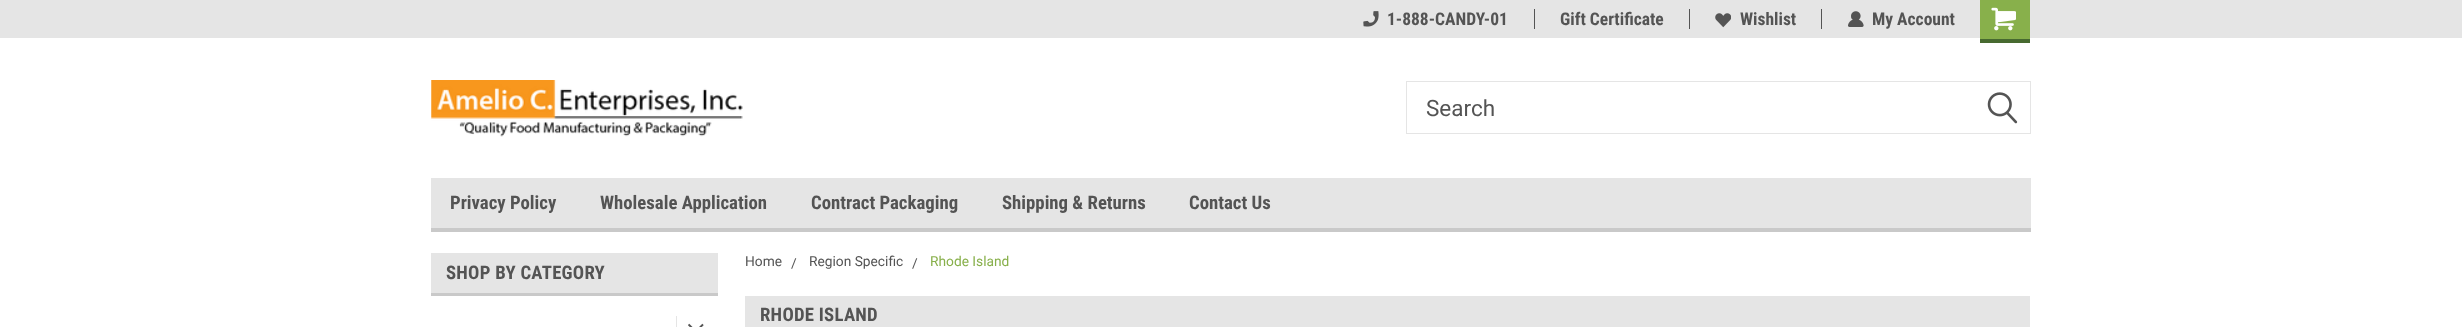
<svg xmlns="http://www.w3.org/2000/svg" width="2462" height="327">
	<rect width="100%" height="100%" fill="#FFFFFF" />
	<rect x="0" y="0" width="2462" height="38" fill="#E5E5E5" />
	<rect x="1534" y="9" width="1" height="20" fill="#545454" />
	<image x="1363" y="11" width="16" height="16" href="assets/img1.png" />
	<text x="1387" y="25" font-family="Roboto Condensed" font-size="17.5" font-weight="700" fill="#545454">1-888-CANDY-01</text>
	<rect x="1689" y="9" width="1" height="20" fill="#545454" />
	<text x="1560" y="25" font-family="Roboto Condensed" font-size="17.5" font-weight="700" fill="#545454">Gift Certificate</text>
	<rect x="1821" y="9" width="1" height="20" fill="#545454" />
	<image x="1715" y="13" width="16" height="15" href="assets/img2.png" />
	<text x="1740" y="25" font-family="Roboto Condensed" font-size="17.5" font-weight="700" fill="#545454">Wishlist</text>
	<image x="1848" y="11" width="16" height="16" href="assets/img3.png" />
	<text x="1872" y="25" font-family="Roboto Condensed" font-size="17.5" font-weight="700" fill="#545454">My Account</text>
	<rect x="1980" y="0" width="50" height="39" fill="#88B04B" />
	<rect x="1980" y="39" width="50" height="4" fill="#476A30" />
	<image x="1991" y="7" width="25" height="24" href="assets/img4.png" />
	<image x="431" y="80" width="312" height="57" href="assets/img5.png" />
	<rect x="1406.5" y="81.5" width="624" height="52" fill="none" stroke="#E5E5E5" />
	<text x="1426" y="116" font-family="Roboto" font-size="22.5" fill="#545454">Search</text>
	<image x="1987" y="92" width="31" height="32" href="assets/img6.png" />
	<rect x="431" y="178" width="1600" height="50" fill="#E5E5E5" />
	<rect x="431" y="228" width="1600" height="4" fill="#C9C9C9" />
	<g font-family="Roboto Condensed" font-size="18.75" font-weight="700" fill="#545454">
		<text x="450" y="209">Privacy Policy</text>
		<text x="600" y="209">Wholesale Application</text>
		<text x="811" y="209">Contract Packaging</text>
		<text x="1002" y="209">Shipping &amp; Returns</text>
		<text x="1189" y="209">Contact Us</text>
	</g>
	<rect x="431" y="253" width="287" height="40" fill="#E5E5E5" />
	<rect x="431" y="293" width="292" height="3" fill="#C9C9C9" />
	<text x="446" y="279" font-family="Roboto Condensed" font-size="18.75" font-weight="700" letter-spacing="0.25" fill="#545454">SHOP BY CATEGORY</text>
	<rect x="676" y="316" width="1" height="11" fill="#E5E5E5" />
	<image x="688" y="323" width="16" height="4" href="assets/img7.png" />
	<rect x="718" y="293" width="5" height="3" fill="#FFFFFF" />
	<g font-family="Roboto" font-size="13.75" fill="#545454">
		<text x="745" y="266">Home</text>
		<text x="791" y="268">/</text>
		<text x="809" y="266">Region Specific</text>
		<text x="912" y="268">/</text>
	</g>
	<text x="930" y="266" font-family="Roboto" font-size="13.75" fill="#88B04B">Rhode Island</text>
	<rect x="745" y="296" width="1285" height="31" fill="#E5E5E5" />
	<text x="760" y="321" font-family="Roboto Condensed" font-size="18.75" font-weight="700" letter-spacing="0.25" fill="#545454">RHODE ISLAND</text>
</svg>
